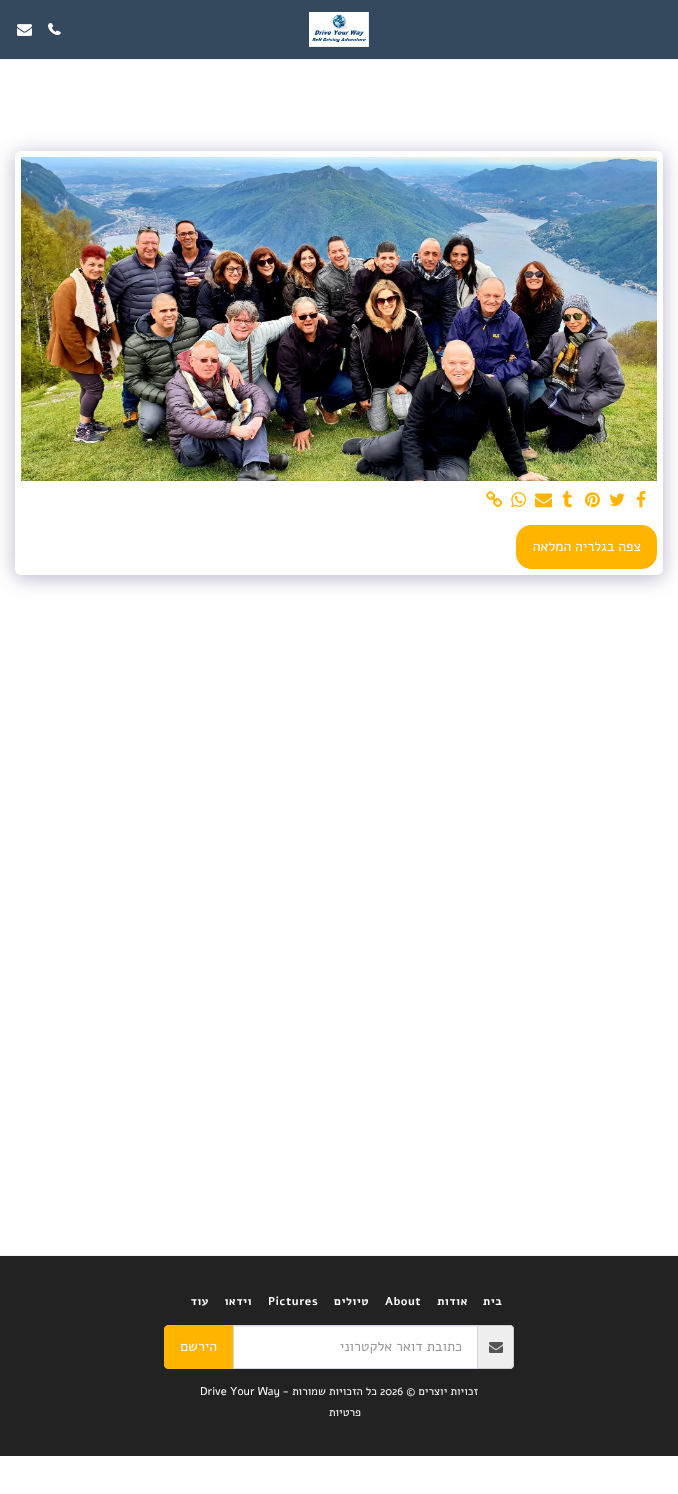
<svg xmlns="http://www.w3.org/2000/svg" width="678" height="1494">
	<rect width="100%" height="100%" fill="#FFFFFF" />
	<rect x="0" y="0" width="678" height="59" fill="#34495E" />
	<rect x="0" y="59" width="678" height="1" fill="#F3EEEE" />
	<image x="309" y="12" width="60" height="35" href="assets/img1.png" />
	<image x="48" y="23" width="11" height="12" href="assets/img2.png" />
	<image x="50" y="23" width="11" height="12" href="assets/img3.png" />
	<image x="17" y="24" width="15" height="12" href="assets/img4.png" />
	<rect x="15" y="154" width="648" height="424" rx="6" fill="#4D3F7A" fill-opacity="0.4" filter="blur(10px)" />
	<rect x="15" y="151" width="648" height="424" rx="6" fill="#FFFFFF" />
	<image x="21" y="157" width="636" height="324" href="assets/img5.png" />
	<image x="636" y="491" width="10" height="17" href="assets/img6.png" />
	<image x="609" y="493" width="16" height="13" href="assets/img7.png" />
	<image x="585" y="492" width="15" height="16" href="assets/img8.png" />
	<image x="562" y="491" width="10" height="17" href="assets/img9.png" />
	<image x="535" y="493" width="17" height="15" href="assets/img10.png" />
	<image x="511" y="492" width="15" height="16" href="assets/img11.png" />
	<image x="486" y="491" width="16" height="17" href="assets/img12.png" />
	<rect x="516.5" y="525.5" width="140" height="43" rx="14.5" fill="#FFB400" stroke="#FFB400" />
	<text x="641" y="551" font-family="Alef" font-size="14" direction="rtl" fill="#FFFFFF">צפה בגלריה המלאה</text>
	<rect x="0" y="1255" width="678" height="1" fill="#F3EEEE" />
	<rect x="0" y="1256" width="678" height="200" fill="#222222" />
	<g font-family="Alef" font-size="11.25" font-weight="700" letter-spacing="0.5" direction="rtl" fill="#FFFFFF">
		<text x="502" y="1305">בית</text>
		<text x="468" y="1305">אודות</text>
	</g>
	<text x="385" y="1305" font-family="Alef" font-size="11.25" font-weight="700" letter-spacing="0.5" fill="#FFFFFF">About</text>
	<text x="369" y="1305" font-family="Alef" font-size="11.25" font-weight="700" letter-spacing="0.5" direction="rtl" fill="#FFFFFF">טיולים</text>
	<text x="268" y="1305" font-family="Alef" font-size="11.25" font-weight="700" letter-spacing="0.5" fill="#FFFFFF">Pictures</text>
	<g font-family="Alef" font-size="11.25" font-weight="700" letter-spacing="0.5" direction="rtl" fill="#FFFFFF">
		<text x="252" y="1305">וידאו</text>
		<text x="209" y="1305">עוד</text>
	</g>
	<path d="M478 1325H510C512 1325 514 1327 514 1329V1365C514 1367 512 1369 510 1369H478Z" fill="#EEEEEE" />
	<path d="M478 1325H510C512 1325 514 1327 514 1329V1365C514 1367 512 1369 510 1369H478ZM478 1326H510C512 1326 513 1327 513 1329V1365C513 1367 512 1368 510 1368H478Z" fill="#CCCCCC" fill-rule="evenodd" />
	<image x="489" y="1342" width="14" height="11" href="assets/img13.png" />
	<rect x="234" y="1327" width="243" height="41" fill="#FFFFFF" />
	<rect x="234" y="1326" width="243" height="1" fill="#ECECEC" />
	<path d="M168 1325.5H233.5V1368.5H168C166 1368.5 164.5 1367 164.5 1365V1329C164.5 1327 166 1325.5 168 1325.5Z" fill="#FFB400" stroke="#FFB400" />
	<rect x="233.5" y="1325.5" width="244" height="43" fill="none" stroke="#D4D7E5" />
	<text x="462" y="1351" font-family="Alef" font-size="14" direction="rtl" fill="#999999">כתובת דואר אלקטרוני</text>
	<text x="217" y="1351" font-family="Alef" font-size="14" direction="rtl" fill="#FFFFFF">הירשם</text>
	<text x="478" y="1395" font-family="Alef" font-size="11.25" direction="rtl" fill="#FFFFFF">זכויות יוצרים ©</text>
	<text x="380" y="1395" font-family="Alef" font-size="11.25" fill="#FFFFFF">2026</text>
	<text x="377" y="1395" font-family="Alef" font-size="11.25" direction="rtl" fill="#FFFFFF">כל הזכויות שמורות -</text>
	<text x="200" y="1395" font-family="Alef" font-size="11.25" fill="#FFFFFF">Drive Your Way</text>
	<text x="361" y="1416" font-family="Alef" font-size="11.25" direction="rtl" fill="#FFFFFF">פרטיות</text>
</svg>
